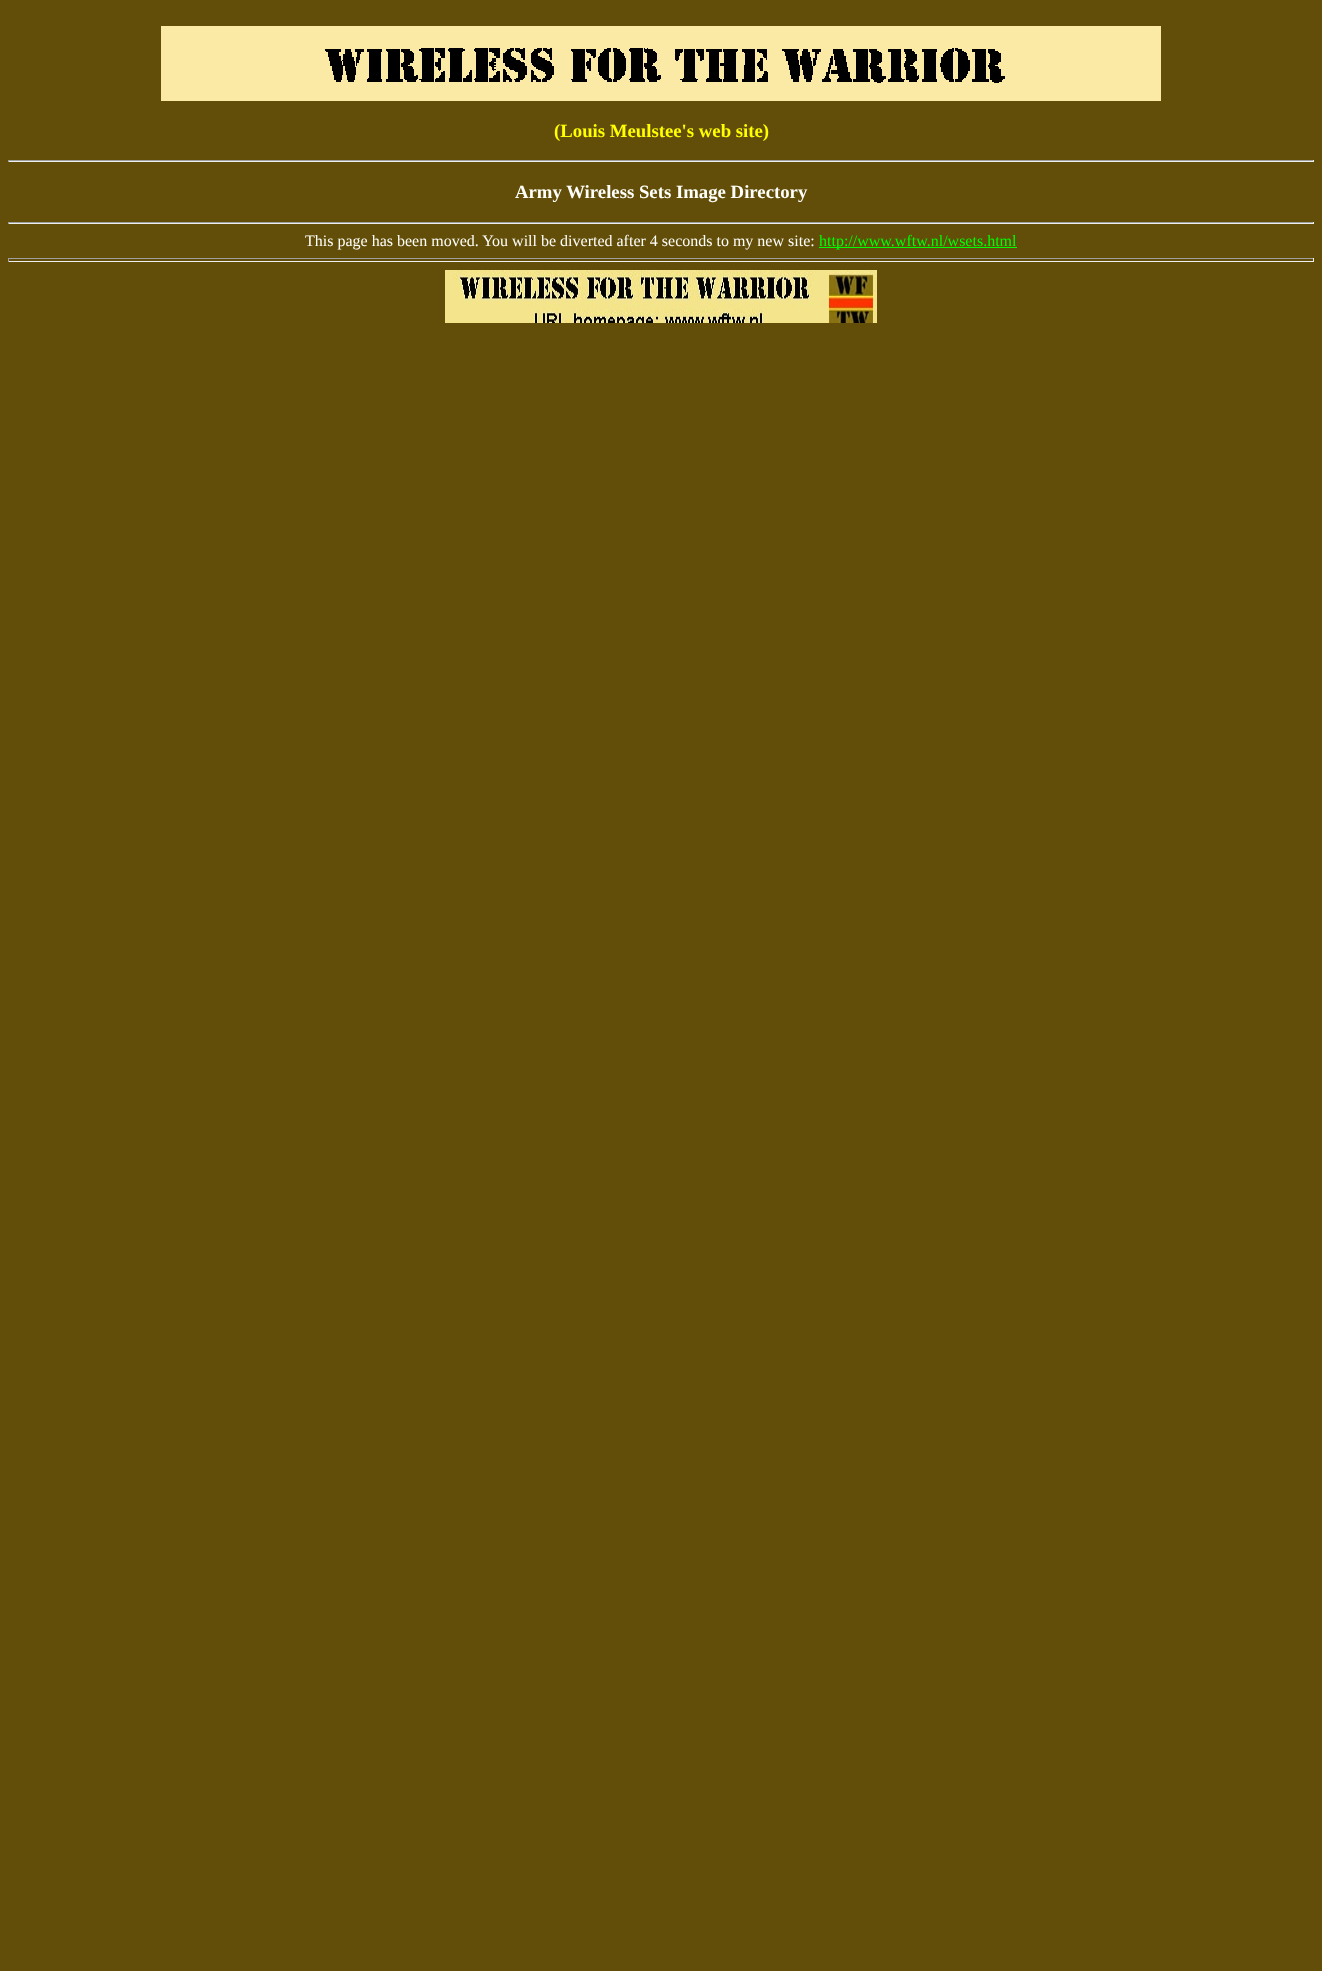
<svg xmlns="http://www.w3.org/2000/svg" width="1322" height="1971">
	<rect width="100%" height="100%" fill="#624E09" />
	<rect x="161" y="26" width="1000" height="75" fill="#FBEAA5" />
	<image x="325" y="48" width="680" height="35" href="assets/img1.png" />
	<text x="554" y="137" font-family="Liberation Serif" font-size="18.75" font-weight="700" fill="#FFFF00">(Louis Meulstee's web site)</text>
	<rect x="8" y="160" width="1306" height="1" fill="#9F9F9F" />
	<rect x="1313" y="160" width="1" height="2" fill="#EEEEEE" />
	<rect x="8" y="161" width="1306" height="1" fill="#EEEEEE" />
	<rect x="8" y="160" width="1" height="2" fill="#9F9F9F" />
	<text x="515" y="198" font-family="Liberation Serif" font-size="18.75" font-weight="700" fill="#FFFFFB">Army Wireless Sets Image Directory</text>
	<rect x="8" y="222" width="1306" height="1" fill="#9F9F9F" />
	<rect x="1313" y="222" width="1" height="2" fill="#EEEEEE" />
	<rect x="8" y="223" width="1306" height="1" fill="#EEEEEE" />
	<rect x="8" y="222" width="1" height="2" fill="#9F9F9F" />
	<text x="305" y="246" font-family="Liberation Serif" font-size="16" fill="#FFFFFB">This page has been moved. You will be diverted after 4 seconds to my new site:</text>
	<rect x="819" y="247" width="198" height="1" fill="#00FF00" />
	<text x="819" y="246" font-family="Liberation Serif" font-size="16" fill="#00FF00">http://www.wftw.nl/wsets.html</text>
	<rect x="8" y="258" width="1306" height="1" fill="#9F9F9F" />
	<rect x="1313" y="258" width="1" height="4" fill="#EEEEEE" />
	<rect x="8" y="261" width="1306" height="1" fill="#EEEEEE" />
	<rect x="8" y="258" width="1" height="4" fill="#9F9F9F" />
	<image x="445" y="270" width="432" height="53" href="assets/img2.png" />
</svg>
